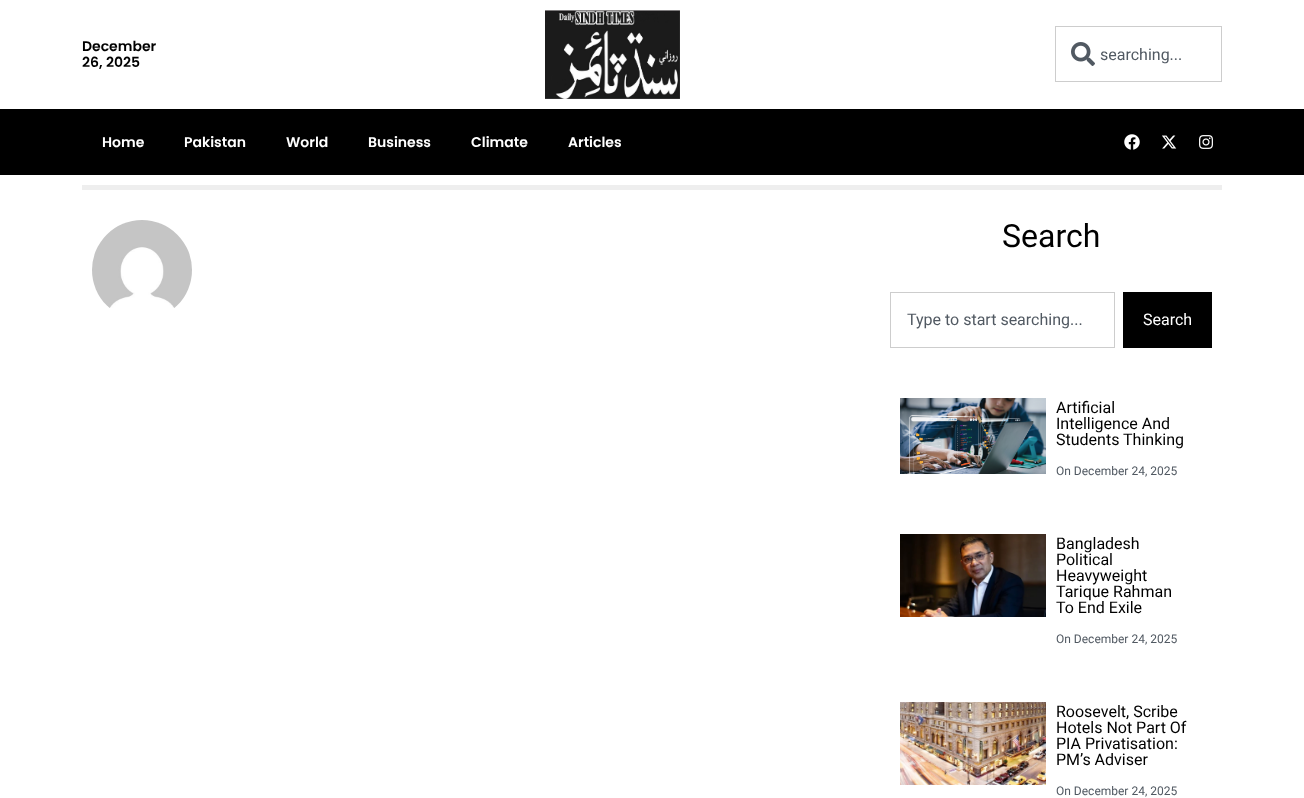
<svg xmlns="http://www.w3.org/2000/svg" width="1304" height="798">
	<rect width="100%" height="100%" fill="#FFFFFF" />
	<g font-family="Poppins" font-size="14" font-weight="600" fill="#000000">
		<text x="82" y="51">December</text>
		<text x="82" y="67">26, 2025</text>
	</g>
	<image x="545" y="10" width="135" height="89" href="assets/img1.png" />
	<rect x="1055.5" y="26.5" width="166" height="55" fill="none" stroke="#CDCDCD" />
	<image x="1071" y="42" width="24" height="24" href="assets/img2.png" />
	<text x="1100" y="60" font-family="Roboto" font-size="16" fill="#515962">searching...</text>
	<rect x="0" y="109" width="1304" height="66" fill="#000000" />
	<g font-family="Poppins" font-size="14" font-weight="600" fill="#FFFFFF">
		<text x="102" y="147">Home</text>
		<text x="184" y="147">Pakistan</text>
		<text x="286" y="147">World</text>
		<text x="368" y="147">Business</text>
		<text x="471" y="147">Climate</text>
		<text x="568" y="147">Articles</text>
	</g>
	<image x="1124" y="134" width="16" height="16" href="assets/img3.png" />
	<image x="1162" y="135" width="15" height="14" href="assets/img4.png" />
	<image x="1199" y="135" width="14" height="14" href="assets/img5.png" />
	<rect x="82" y="185" width="1140" height="5" fill="#EEEEEE" />
	<image x="92" y="220" width="100" height="88" href="assets/img6.png" />
	<text x="1002" y="247" font-family="Roboto" font-size="32" fill="#000000">Search</text>
	<rect x="890.5" y="292.5" width="224" height="55" fill="none" stroke="#CDCDCD" />
	<text x="907" y="325" font-family="Roboto" font-size="16" fill="#515962">Type to start searching...</text>
	<rect x="1123" y="292" width="89" height="56" fill="#000000" />
	<text x="1143" y="325" font-family="Roboto" font-size="16" fill="#FFFFFF">Search</text>
	<image x="900" y="398" width="146" height="76" href="assets/img7.png" />
	<g font-family="Roboto" font-size="16" fill="#000000">
		<text x="1056" y="413">Artificial</text>
		<text x="1056" y="429">Intelligence And</text>
		<text x="1056" y="445">Students Thinking</text>
	</g>
	<text x="1056" y="475" font-family="Roboto" font-size="12" fill="#515962">On December 24, 2025</text>
	<image x="900" y="534" width="146" height="83" href="assets/img8.png" />
	<g font-family="Roboto" font-size="16" fill="#000000">
		<text x="1056" y="549">Bangladesh</text>
		<text x="1056" y="565">Political</text>
		<text x="1056" y="581">Heavyweight</text>
		<text x="1056" y="597">Tarique Rahman</text>
		<text x="1056" y="613">To End Exile</text>
	</g>
	<text x="1056" y="643" font-family="Roboto" font-size="12" fill="#515962">On December 24, 2025</text>
	<image x="900" y="702" width="146" height="83" href="assets/img9.png" />
	<g font-family="Roboto" font-size="16" fill="#000000">
		<text x="1056" y="717">Roosevelt, Scribe</text>
		<text x="1056" y="733">Hotels Not Part Of</text>
		<text x="1056" y="749">PIA Privatisation:</text>
		<text x="1056" y="765">PM’s Adviser</text>
	</g>
	<text x="1056" y="795" font-family="Roboto" font-size="12" fill="#515962">On December 24, 2025</text>
</svg>
